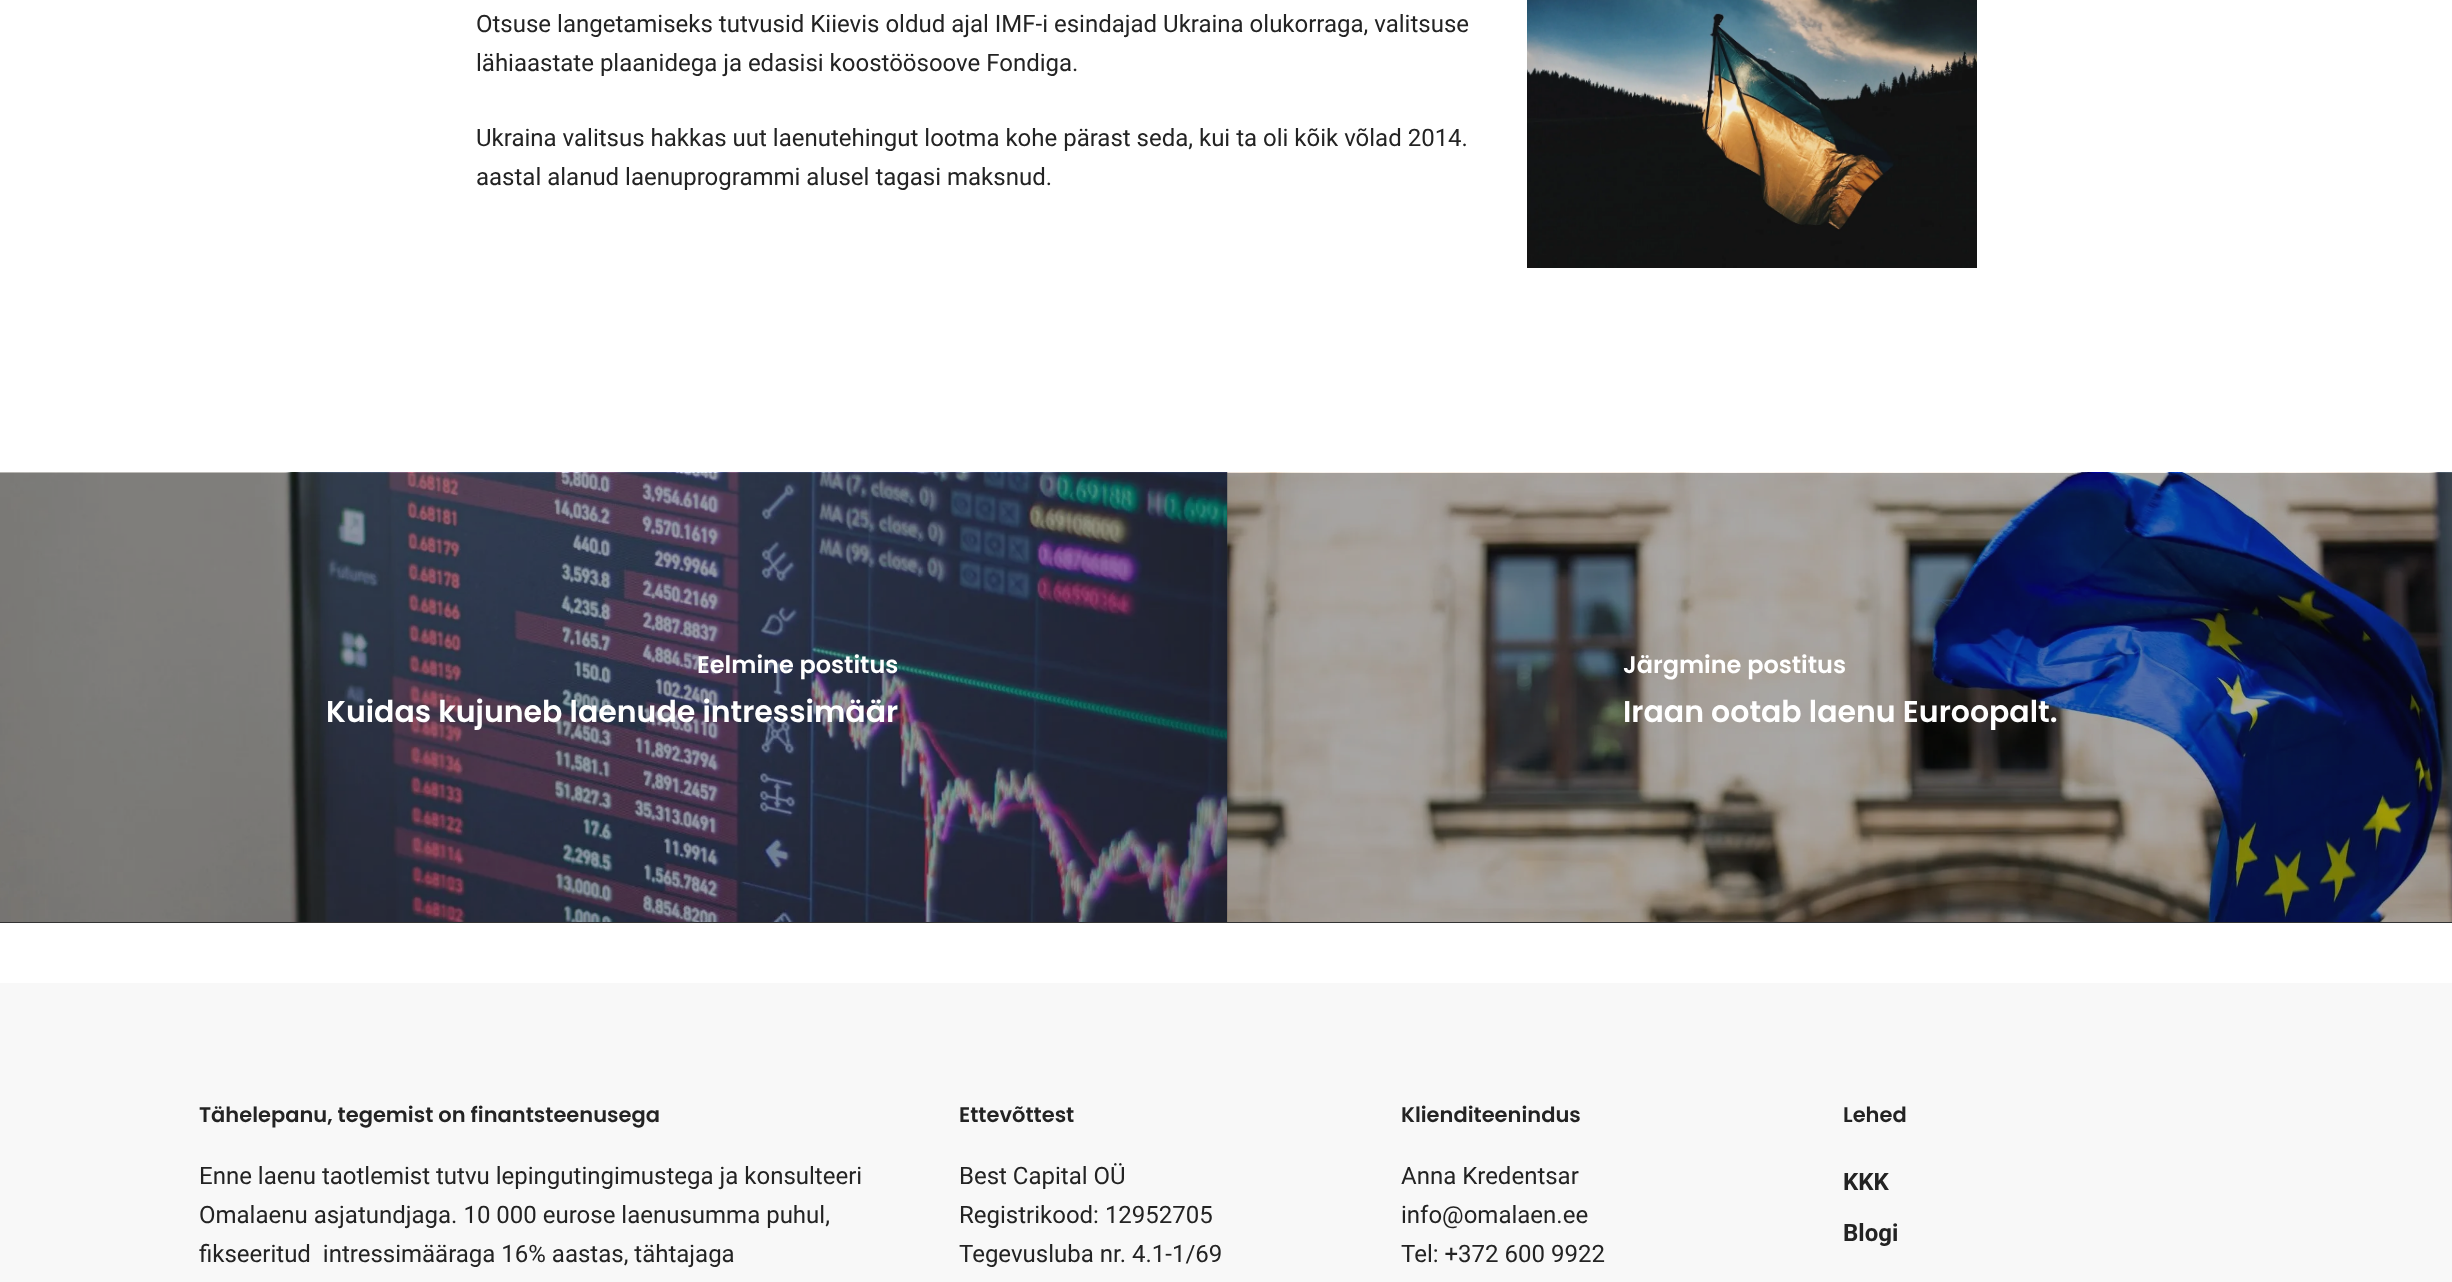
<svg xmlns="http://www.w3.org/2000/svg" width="2452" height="1282">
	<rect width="100%" height="100%" fill="#FFFFFF" />
	<g font-family="Roboto" font-size="24" fill="#232323">
		<text x="476" y="32">Otsuse langetamiseks tutvusid Kiievis oldud ajal IMF-i esindajad Ukraina olukorraga, valitsuse</text>
		<text x="476" y="71">lähiaastate plaanidega ja edasisi koostöösoove Fondiga.</text>
	</g>
	<image x="1527" y="0" width="450" height="268" href="assets/img1.png" />
	<g font-family="Roboto" font-size="24" fill="#232323">
		<text x="476" y="146">Ukraina valitsus hakkas uut laenutehingut lootma kohe pärast seda, kui ta oli kõik võlad 2014.</text>
		<text x="476" y="185">aastal alanud laenuprogrammi alusel tagasi maksnud.</text>
	</g>
	<rect x="0" y="922" width="2452" height="1" fill="#333333" />
	<image x="0" y="472" width="1227" height="450" href="assets/img2.png" />
	<text x="697" y="673" font-family="Poppins" font-size="24" font-weight="600" fill="#FFFFFF">Eelmine postitus</text>
	<text x="326" y="722" font-family="Poppins" font-size="30" font-weight="600" fill="#FFFFFF">Kuidas kujuneb laenude intressimäär</text>
	<image x="1227" y="472" width="1225" height="450" href="assets/img3.png" />
	<text x="1623" y="673" font-family="Poppins" font-size="24" font-weight="600" fill="#FFFFFF">Järgmine postitus</text>
	<text x="1623" y="722" font-family="Poppins" font-size="30" font-weight="600" fill="#FFFFFF">Iraan ootab laenu Euroopalt.</text>
	<rect x="0" y="983" width="2452" height="299" fill="#F8F8F8" />
	<text x="199" y="1122" font-family="Poppins" font-size="21" font-weight="600" fill="#232323">Tähelepanu, tegemist on finantsteenusega</text>
	<g font-family="Roboto" font-size="24" fill="#232323">
		<text x="199" y="1184">Enne laenu taotlemist tutvu lepingutingimustega ja konsulteeri</text>
		<text x="199" y="1223">Omalaenu asjatundjaga. 10 000 eurose laenusumma puhul,</text>
		<text x="199" y="1262" xml:space="preserve">fikseeritud  intressimääraga 16% aastas, tähtajaga</text>
	</g>
	<text x="959" y="1122" font-family="Poppins" font-size="21" font-weight="600" fill="#232323">Ettevõttest</text>
	<g font-family="Roboto" font-size="24" fill="#232323">
		<text x="959" y="1184">Best Capital OÜ</text>
		<text x="959" y="1223">Registrikood: 12952705</text>
		<text x="959" y="1262">Tegevusluba nr. 4.1-1/69</text>
	</g>
	<text x="1401" y="1122" font-family="Poppins" font-size="21" font-weight="600" fill="#232323">Klienditeenindus</text>
	<g font-family="Roboto" font-size="24" fill="#232323">
		<text x="1401" y="1184">Anna Kredentsar</text>
		<text x="1401" y="1223">info@omalaen.ee</text>
		<text x="1401" y="1262">Tel: +372 600 9922</text>
	</g>
	<text x="1843" y="1122" font-family="Poppins" font-size="21" font-weight="600" fill="#232323">Lehed</text>
	<g font-family="Roboto" font-size="24" font-weight="700" fill="#232323">
		<text x="1843" y="1190">KKK</text>
		<text x="1843" y="1241">Blogi</text>
	</g>
</svg>
